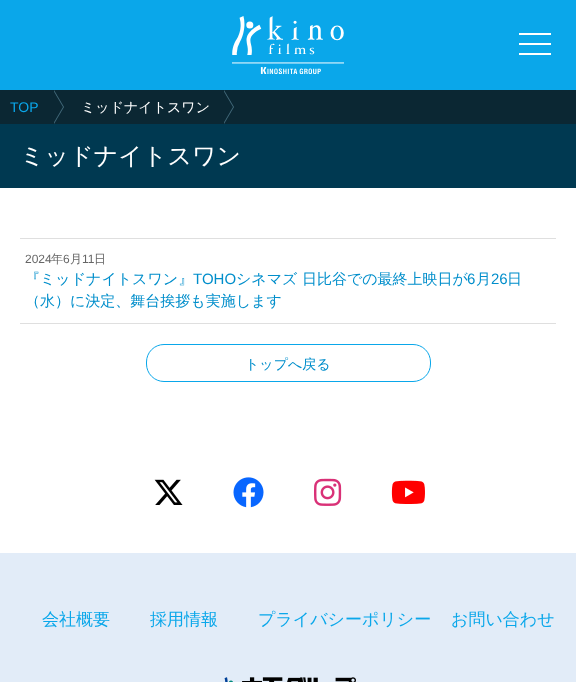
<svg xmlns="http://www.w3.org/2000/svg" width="576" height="682">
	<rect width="100%" height="100%" fill="#FFFFFF" />
	<rect x="0" y="0" width="576" height="90" fill="#0AA7EA" />
	<image x="232" y="16" width="112" height="58" href="assets/img1.png" />
	<rect x="519" y="43" width="32" height="2" fill="#FFFFFF" />
	<rect x="519" y="33" width="32" height="2" fill="#FFFFFF" />
	<rect x="519" y="53" width="32" height="2" fill="#FFFFFF" />
	<rect x="0" y="124" width="576" height="64" fill="#003951" />
	<rect x="0" y="90" width="576" height="34" fill="#0B2733" />
	<path d="M54 124V90L64 107Z" fill="#456C7D" />
	<path d="M53 124V90L63 107Z" fill="#0B2733" />
	<text x="10" y="112" font-family="Liberation Sans" font-size="14" fill="#0AA7EA">TOP</text>
	<path d="M224 124V90L234 107Z" fill="#456C7D" />
	<path d="M223 124V90L233 107Z" fill="#0B2733" />
	<text x="81" y="112" font-family="WenQuanYi Zen Hei" font-size="14" font-weight="500" fill="#FFFFFF">ミッドナイトスワン</text>
	<text x="20" y="164" font-family="WenQuanYi Zen Hei" font-size="24" font-weight="500" fill="#FFFFFF">ミッドナイトスワン</text>
	<rect x="20" y="323" width="536" height="1" fill="#DFDFDF" />
	<rect x="20" y="238" width="536" height="1" fill="#DFDFDF" />
	<text x="25" y="263" font-family="Liberation Sans" font-size="12" fill="#666666">2024</text>
	<text x="51" y="263" font-family="WenQuanYi Zen Hei" font-size="12" font-weight="500" fill="#666666">年</text>
	<text x="63" y="263" font-family="Liberation Sans" font-size="12" fill="#666666">6</text>
	<text x="70" y="263" font-family="WenQuanYi Zen Hei" font-size="12" font-weight="500" fill="#666666">月</text>
	<text x="82" y="263" font-family="Liberation Sans" font-size="12" fill="#666666">11</text>
	<text x="94" y="263" font-family="WenQuanYi Zen Hei" font-size="12" font-weight="500" fill="#666666">日</text>
	<text x="25" y="284" font-family="WenQuanYi Zen Hei" font-size="15" font-weight="500" fill="#008ECB">『ミッドナイトスワン』</text>
	<text x="193" y="284" font-family="Liberation Sans" font-size="15" fill="#008ECB">TOHO</text>
	<text x="236" y="284" font-family="WenQuanYi Zen Hei" font-size="15" font-weight="500" fill="#008ECB">シネマズ 日比谷での最終上映日が</text>
	<text x="467" y="284" font-family="Liberation Sans" font-size="15" fill="#008ECB">6</text>
	<text x="476" y="284" font-family="WenQuanYi Zen Hei" font-size="15" font-weight="500" fill="#008ECB">月</text>
	<text x="491" y="284" font-family="Liberation Sans" font-size="15" fill="#008ECB">26</text>
	<g font-family="WenQuanYi Zen Hei" font-size="15" font-weight="500" fill="#008ECB">
		<text x="507" y="284">日</text>
		<text x="25" y="306">（水）に決定、舞台挨拶も実施します</text>
	</g>
	<rect x="146.5" y="344.5" width="284" height="37" rx="17.5" fill="none" stroke="#0AA7EA" />
	<text x="245" y="369" font-family="WenQuanYi Zen Hei" font-size="14" font-weight="500" fill="#008ECB">トップへ戻る</text>
	<rect x="0" y="553" width="576" height="129" fill="#E2ECF8" />
	<image x="154" y="479" width="29" height="26" href="assets/img2.png" />
	<image x="233" y="477" width="31" height="31" href="assets/img3.png" />
	<image x="314" y="478" width="28" height="28" href="assets/img4.png" />
	<image x="391" y="480" width="34" height="24" href="assets/img5.png" />
	<g font-family="WenQuanYi Zen Hei" font-size="17" font-weight="500" fill="#0AA7EA">
		<text x="42" y="625">会社概要</text>
		<text x="150" y="625">採用情報</text>
		<text x="258" y="625">プライバシーポリシー</text>
		<text x="451" y="625">お問い合わせ</text>
	</g>
	<image x="224" y="677" width="132" height="5" href="assets/img6.png" />
</svg>
